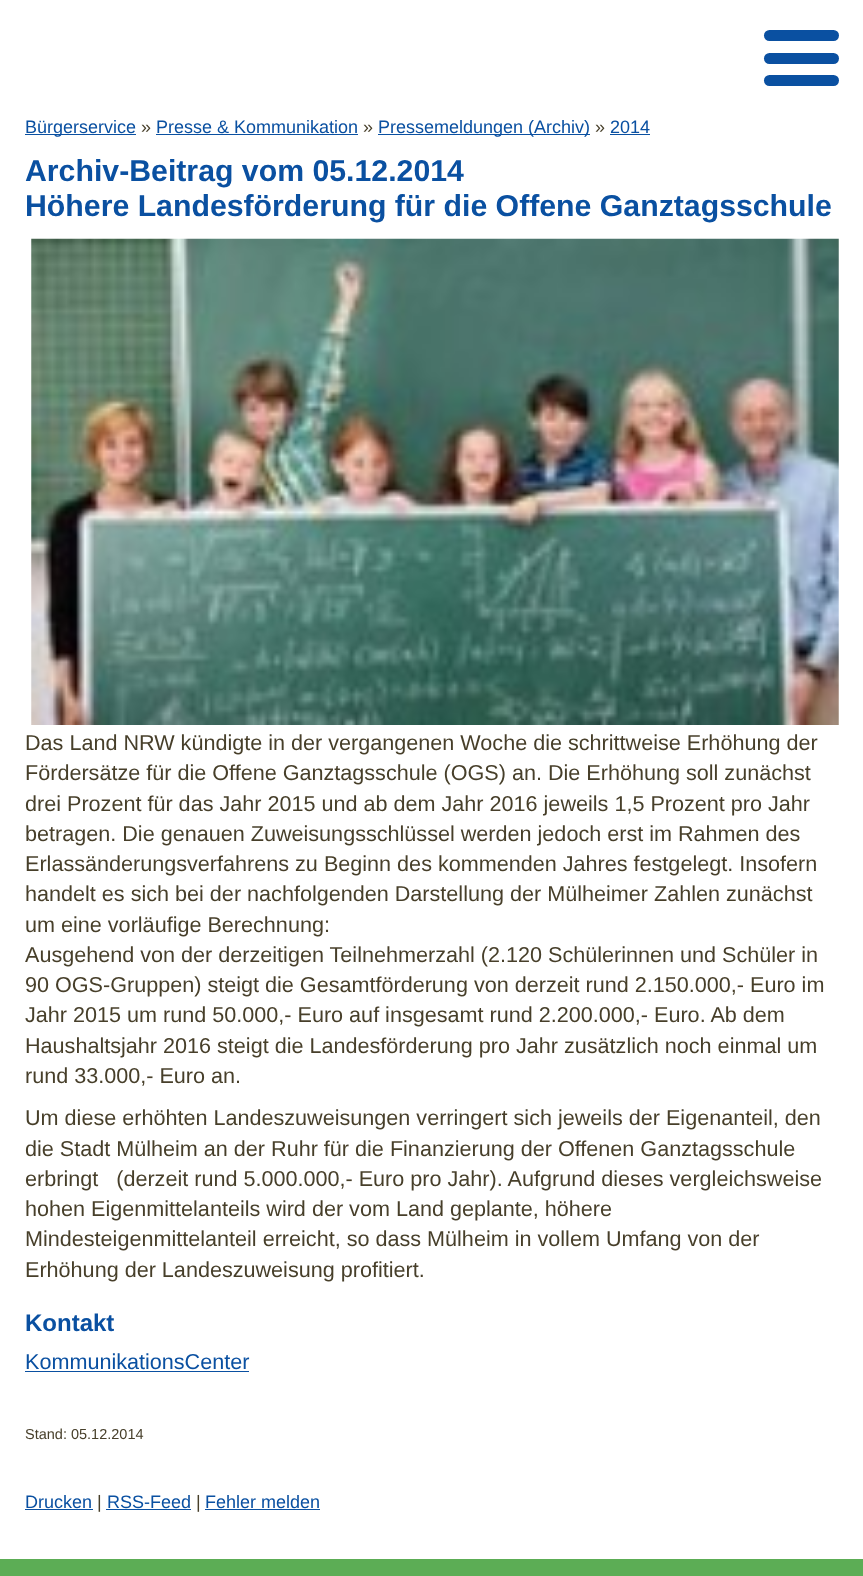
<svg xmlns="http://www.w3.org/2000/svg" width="863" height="1576">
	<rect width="100%" height="100%" fill="#FFFFFF" />
	<rect x="764" y="30" width="75" height="11" rx="5.5" fill="#0A50A1" />
	<rect x="764" y="53" width="75" height="11" rx="5.5" fill="#0A50A1" />
	<rect x="764" y="75" width="75" height="11" rx="5.5" fill="#0A50A1" />
	<rect x="25" y="134" width="111" height="1" fill="#0A50A1" />
	<text x="25" y="133" font-family="Liberation Sans" font-size="18" fill="#0A50A1">Bürgerservice</text>
	<text x="141" y="133" font-family="Liberation Sans" font-size="18" fill="#473F2A">»</text>
	<text x="156" y="133" font-family="Liberation Sans" font-size="18" fill="#0A50A1">Presse &amp; Kommunikation</text>
	<rect x="156" y="134" width="202" height="1" fill="#0A50A1" />
	<text x="363" y="133" font-family="Liberation Sans" font-size="18" fill="#473F2A">»</text>
	<rect x="378" y="134" width="212" height="1" fill="#0A50A1" />
	<text x="378" y="133" font-family="Liberation Sans" font-size="18" fill="#0A50A1">Pressemeldungen (Archiv)</text>
	<text x="595" y="133" font-family="Liberation Sans" font-size="18" fill="#473F2A">»</text>
	<text x="610" y="133" font-family="Liberation Sans" font-size="18" fill="#0A50A1">2014</text>
	<rect x="610" y="134" width="40" height="1" fill="#0A50A1" />
	<g font-family="Liberation Sans" font-size="30.25" font-weight="700" fill="#0A50A1">
		<text x="25" y="181">Archiv-Beitrag vom 05.12.2014</text>
		<text x="25" y="216">Höhere Landesförderung für die Offene Ganztagsschule</text>
	</g>
	<image x="31" y="238" width="808" height="487" href="assets/img1.png" />
	<g font-family="Liberation Sans" font-size="21.6" fill="#473F2A">
		<text x="25" y="750">Das Land NRW kündigte in der vergangenen Woche die schrittweise Erhöhung der</text>
		<text x="25" y="780">Fördersätze für die Offene Ganztagsschule (OGS) an. Die Erhöhung soll zunächst</text>
		<text x="25" y="811">drei Prozent für das Jahr 2015 und ab dem Jahr 2016 jeweils 1,5 Prozent pro Jahr</text>
		<text x="25" y="841">betragen. Die genauen Zuweisungsschlüssel werden jedoch erst im Rahmen des</text>
		<text x="25" y="871">Erlassänderungsverfahrens zu Beginn des kommenden Jahres festgelegt. Insofern</text>
		<text x="25" y="901">handelt es sich bei der nachfolgenden Darstellung der Mülheimer Zahlen zunächst</text>
		<text x="25" y="932">um eine vorläufige Berechnung:</text>
		<text x="25" y="962">Ausgehend von der derzeitigen Teilnehmerzahl (2.120 Schülerinnen und Schüler in</text>
		<text x="25" y="992">90 OGS-Gruppen) steigt die Gesamtförderung von derzeit rund 2.150.000,- Euro im</text>
		<text x="25" y="1022">Jahr 2015 um rund 50.000,- Euro auf insgesamt rund 2.200.000,- Euro. Ab dem</text>
		<text x="25" y="1053">Haushaltsjahr 2016 steigt die Landesförderung pro Jahr zusätzlich noch einmal um</text>
		<text x="25" y="1083">rund 33.000,- Euro an.</text>
		<text x="25" y="1125">Um diese erhöhten Landeszuweisungen verringert sich jeweils der Eigenanteil, den</text>
		<text x="25" y="1156">die Stadt Mülheim an der Ruhr für die Finanzierung der Offenen Ganztagsschule</text>
		<text x="25" y="1186" xml:space="preserve">erbringt   (derzeit rund 5.000.000,- Euro pro Jahr). Aufgrund dieses vergleichsweise</text>
		<text x="25" y="1216">hohen Eigenmittelanteils wird der vom Land geplante, höhere</text>
		<text x="25" y="1246">Mindesteigenmittelanteil erreicht, so dass Mülheim in vollem Umfang von der</text>
		<text x="25" y="1277">Erhöhung der Landeszuweisung profitiert.</text>
	</g>
	<text x="25" y="1331" font-family="Liberation Sans" font-size="24" font-weight="700" fill="#0A50A1">Kontakt</text>
	<text x="25" y="1369" font-family="Liberation Sans" font-size="21.6" fill="#0A50A1">KommunikationsCenter</text>
	<rect x="25" y="1371" width="224" height="1" fill="#0A50A1" />
	<text x="25" y="1439" font-family="Liberation Sans" font-size="14.5" fill="#473F2A">Stand: 05.12.2014</text>
	<text x="25" y="1508" font-family="Liberation Sans" font-size="18" fill="#0A50A1">Drucken</text>
	<rect x="25" y="1509" width="68" height="1" fill="#0A50A1" />
	<text x="97" y="1508" font-family="Liberation Sans" font-size="18" fill="#473F2A">|</text>
	<text x="107" y="1508" font-family="Liberation Sans" font-size="18" fill="#0A50A1">RSS-Feed</text>
	<rect x="106" y="1509" width="85" height="1" fill="#0A50A1" />
	<text x="196" y="1508" font-family="Liberation Sans" font-size="18" fill="#473F2A">|</text>
	<text x="205" y="1508" font-family="Liberation Sans" font-size="18" fill="#0A50A1">Fehler melden</text>
	<rect x="205" y="1509" width="115" height="1" fill="#0A50A1" />
	<rect x="0" y="1559" width="863" height="17" fill="#5CAD55" />
</svg>
